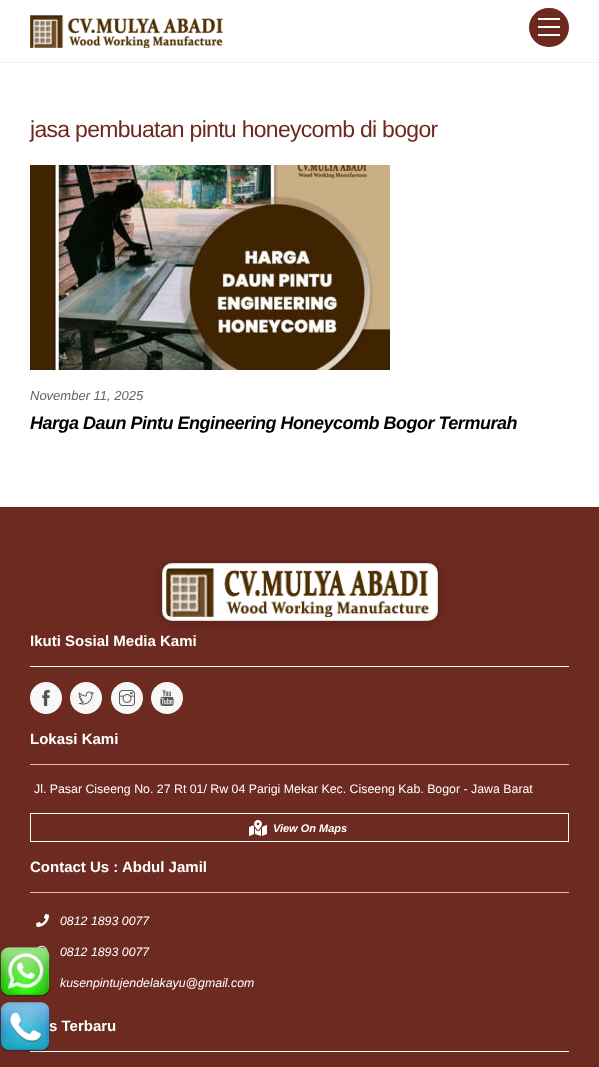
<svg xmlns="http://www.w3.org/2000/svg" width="599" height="1067">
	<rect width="100%" height="100%" fill="#FFFFFF" />
	<rect x="0" y="508" width="599" height="559" fill="#6D2A21" />
	<image x="37" y="945" width="11" height="8" href="assets/img12.png" />
	<image x="48" y="977" width="1" height="11" href="assets/img13.png" />
	<image x="0" y="947" width="50" height="50" href="assets/img1.png" />
	<text x="49" y="1031" font-family="Liberation Sans" font-size="15" font-weight="700" fill="#FFFFFF">s Terbaru</text>
	<rect x="30" y="1051" width="539" height="1" fill="#FFFFFF" />
	<image x="0" y="1002" width="50" height="50" href="assets/img2.png" />
	<rect x="0" y="62" width="599" height="1" fill="#F2F2F2" />
	<image x="30" y="15" width="193" height="33" href="assets/img3.png" />
	<rect x="529" y="8" width="40" height="39" rx="19.5" fill="#6C2A1E" />
	<rect x="538" y="34" width="22" height="2" fill="#FFFFFF" />
	<rect x="538" y="18" width="22" height="2" fill="#FFFFFF" />
	<rect x="538" y="26" width="22" height="2" fill="#FFFFFF" />
	<text x="30" y="137" font-family="Liberation Sans" font-size="23" letter-spacing="-0.7" fill="#6C2A1E">jasa pembuatan pintu honeycomb di bogor</text>
	<image x="30" y="165" width="360" height="205" href="assets/img4.png" />
	<text x="30" y="400" font-family="Liberation Sans" font-size="13" font-style="italic" fill="#636363">November 11, 2025</text>
	<text x="30" y="429" font-family="Liberation Sans" font-size="18" font-weight="700" font-style="italic" letter-spacing="-0.5" fill="#000000">Harga Daun Pintu Engineering Honeycomb Bogor Termurah</text>
	<rect x="0" y="507" width="599" height="1" fill="#68281F" />
	<rect x="160" y="562" width="280" height="62" rx="12" fill="#000000" fill-opacity="0.15" filter="blur(4px)" />
	<rect x="162" y="563" width="276" height="58" rx="10" fill="#FFFFFF" />
	<rect x="162.5" y="563.5" width="275" height="57" rx="9.5" fill="none" stroke="#000000" stroke-opacity="0.15" />
	<image x="166" y="568" width="264" height="49" href="assets/img5.png" />
	<rect x="30" y="666" width="539" height="1" fill="#FFFFFF" />
	<text x="30" y="646" font-family="Liberation Sans" font-size="15" font-weight="700" fill="#FFFFFF">Ikuti Sosial Media Kami</text>
	<circle cx="46" cy="698" r="16" fill="#F7F7F7" />
	<image x="42" y="690" width="8" height="16" href="assets/img6.png" />
	<circle cx="86" cy="698" r="16" fill="#F7F7F7" />
	<image x="78" y="691" width="16" height="14" href="assets/img7.png" />
	<circle cx="127" cy="698" r="16" fill="#F7F7F7" />
	<image x="119" y="690" width="16" height="16" href="assets/img8.png" />
	<circle cx="167" cy="698" r="16" fill="#F7F7F7" />
	<image x="160" y="690" width="14" height="16" href="assets/img9.png" />
	<text x="30" y="744" font-family="Liberation Sans" font-size="15" font-weight="700" fill="#FFFFFF">Lokasi Kami</text>
	<rect x="30" y="764" width="539" height="1" fill="#DAC29D" />
	<text x="34" y="793" font-family="Liberation Sans" font-size="12.35" fill="#FFFFFF">Jl. Pasar Ciseeng No. 27 Rt 01/ Rw 04 Parigi Mekar Kec. Ciseeng Kab. Bogor - Jawa Barat</text>
	<rect x="30.5" y="813.5" width="538" height="28" fill="none" stroke="#FFFFFF" />
	<image x="249" y="820" width="18" height="16" href="assets/img10.png" />
	<text x="273" y="832" font-family="Liberation Sans" font-size="11" font-weight="700" font-style="italic" fill="#FFFFFF">View On Maps</text>
	<text x="30" y="872" font-family="Liberation Sans" font-size="15" font-weight="700" fill="#FFFFFF">Contact Us : Abdul Jamil</text>
	<rect x="30" y="892" width="539" height="1" fill="#DAC29D" />
	<image x="36" y="914" width="13" height="13" href="assets/img11.png" />
	<g font-family="Liberation Sans" font-size="12.35" font-style="italic" fill="#FFFFFF">
		<text x="60" y="925">0812 1893 0077</text>
		<text x="60" y="956">0812 1893 0077</text>
		<text x="60" y="987">kusenpintujendelakayu@gmail.com</text>
	</g>
</svg>
